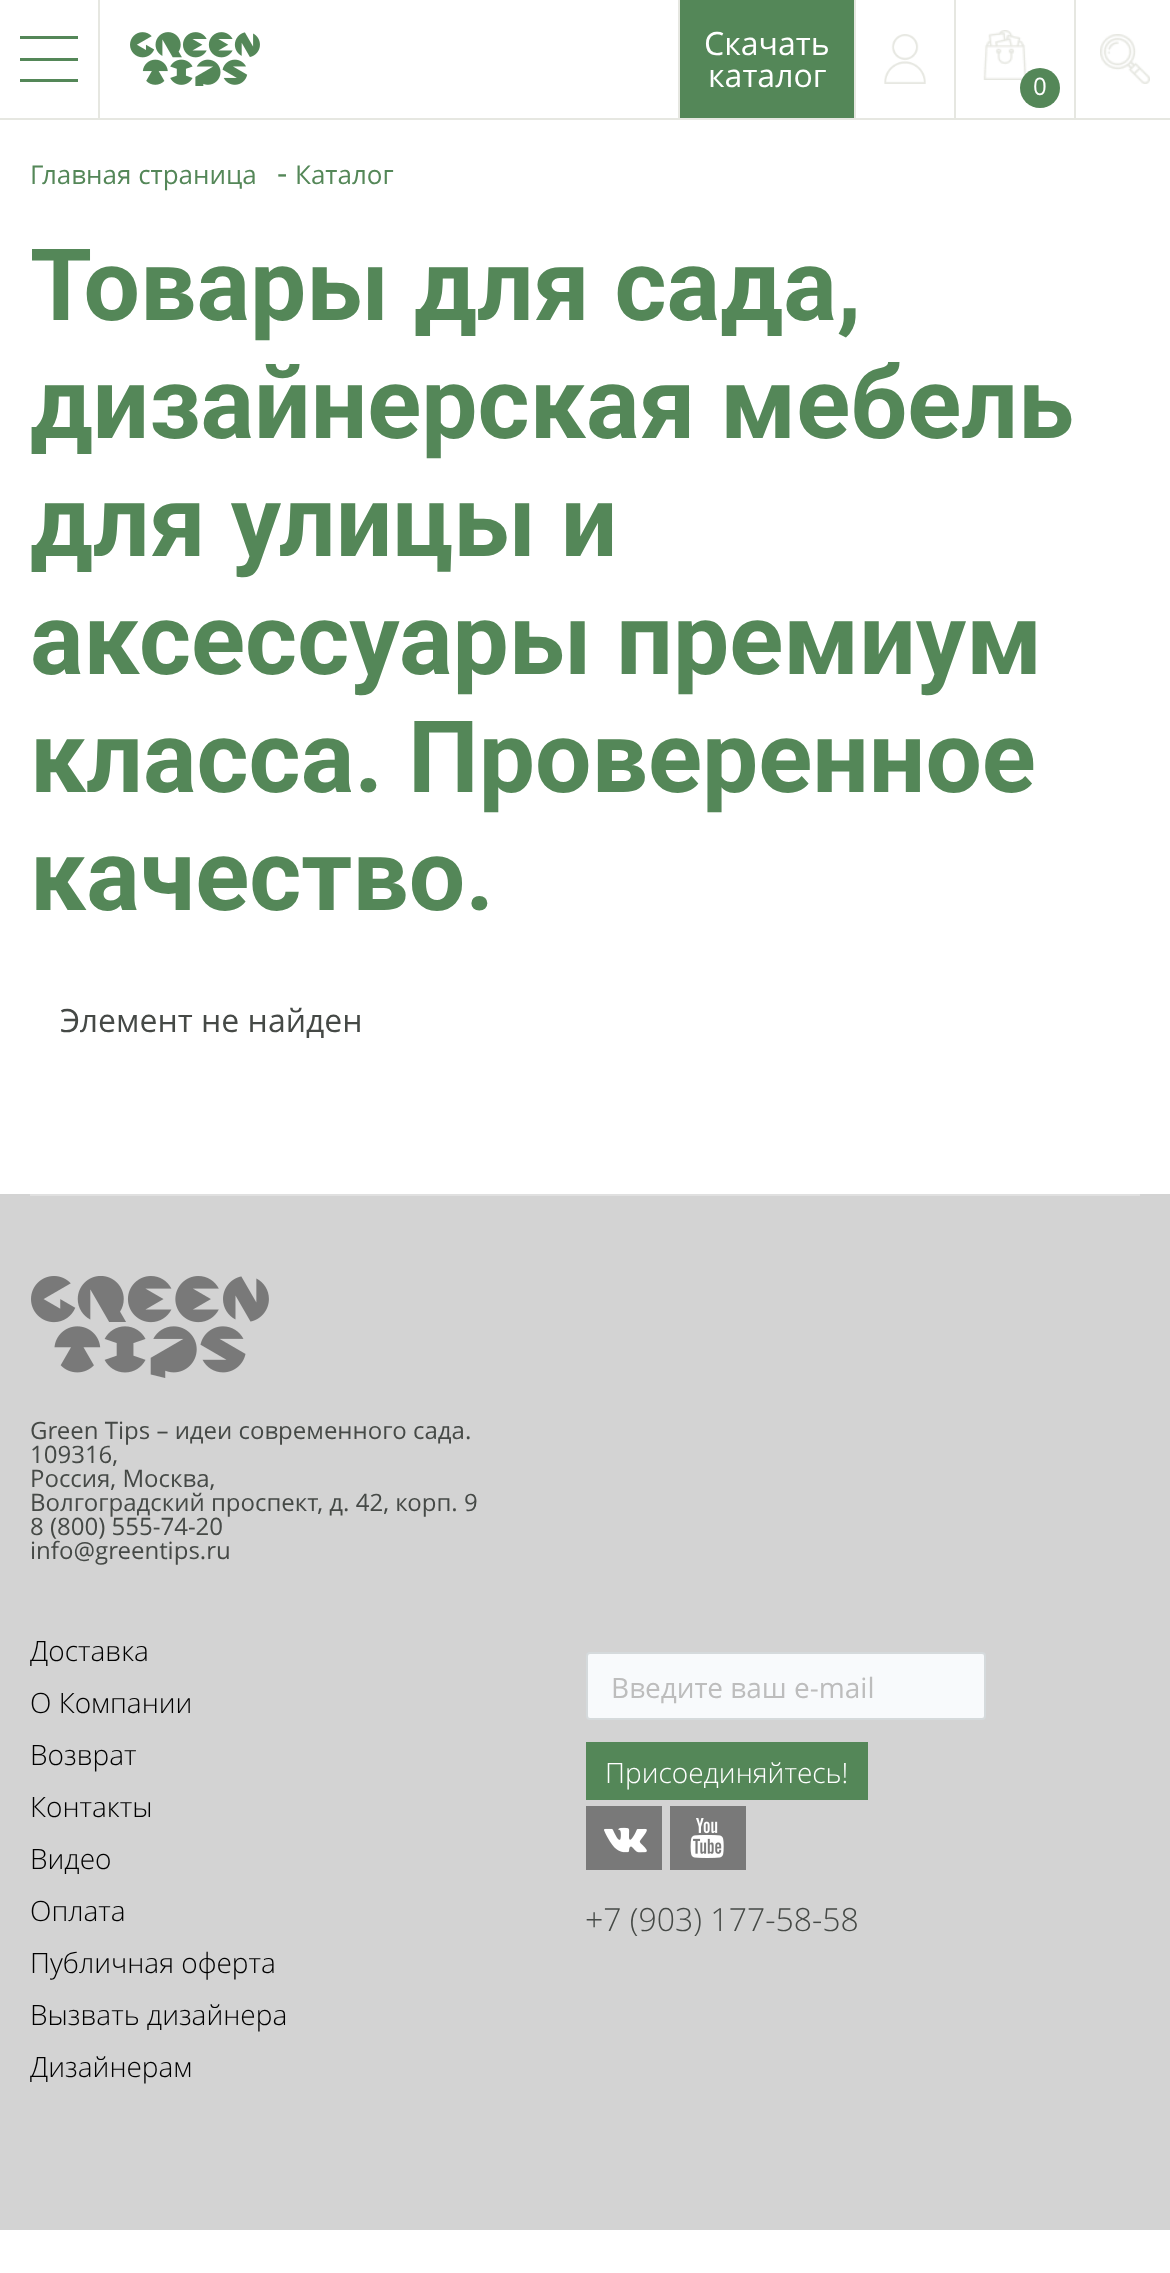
<svg xmlns="http://www.w3.org/2000/svg" width="1170" height="2273">
	<rect width="100%" height="100%" fill="#FFFFFF" />
	<rect x="0" y="118" width="1170" height="2" fill="#E6E7E1" />
	<rect x="98" y="0" width="2" height="118" fill="#E6E7E1" />
	<rect x="20" y="36" width="58" height="3" fill="#548758" />
	<rect x="20" y="58" width="58" height="3" fill="#548758" />
	<rect x="20" y="79" width="58" height="3" fill="#548758" />
	<image x="130" y="32" width="130" height="54" href="assets/img1.png" />
	<rect x="680" y="0" width="174" height="118" fill="#548758" />
	<rect x="678" y="0" width="2" height="118" fill="#E6E7E1" />
	<g font-family="Open Sans" font-size="32" fill="#FFFFFF">
		<text x="704" y="55">Скачать</text>
		<text x="708" y="87">каталог</text>
	</g>
	<rect x="854" y="0" width="2" height="118" fill="#E6E7E1" />
	<image x="884" y="34" width="42" height="50" href="assets/img2.png" />
	<rect x="954" y="0" width="2" height="118" fill="#E6E7E1" />
	<image x="983" y="30" width="44" height="50" href="assets/img3.png" />
	<circle cx="1040" cy="88" r="20" fill="#548758" />
	<text x="1033" y="95" font-family="Open Sans" font-size="24" fill="#FFFFFF">0</text>
	<rect x="1074" y="0" width="2" height="118" fill="#E6E7E1" />
	<image x="1100" y="34" width="50" height="50" href="assets/img4.png" />
	<text x="30" y="184" font-family="Open Sans" font-size="26" fill="#548758">Главная страница</text>
	<text x="277" y="184" font-family="Open Sans" font-size="32" fill="#548758">-</text>
	<text x="295" y="184" font-family="Open Sans" font-size="26" fill="#548758">Каталог</text>
	<g font-family="Roboto" font-size="100" font-weight="700" fill="#548758">
		<text x="30" y="320">Товары для сада,</text>
		<text x="30" y="438">дизайнерская мебель</text>
		<text x="30" y="556">для улицы и</text>
		<text x="30" y="674">аксессуары премиум</text>
		<text x="30" y="792">класса. Проверенное</text>
		<text x="30" y="910">качество.</text>
	</g>
	<text x="60" y="1032" font-family="Open Sans" font-size="32" fill="#454946">Элемент не найден</text>
	<rect x="0" y="1194" width="1170" height="1036" fill="#D3D3D3" />
	<rect x="30" y="1194" width="1110" height="2" fill="#E0E0E0" />
	<image x="31" y="1276" width="238" height="102" href="assets/img5.png" />
	<g font-family="Open Sans" font-size="24" fill="#454946">
		<text x="30" y="1439">Green Tips – идеи современного сада.</text>
		<text x="30" y="1463">109316,</text>
		<text x="30" y="1487">Россия, Москва,</text>
		<text x="30" y="1511">Волгоградский проспект, д. 42, корп. 9</text>
		<text x="30" y="1535">8 (800) 555-74-20</text>
		<text x="30" y="1559">info@greentips.ru</text>
	</g>
	<g font-family="Open Sans" font-size="28" font-weight="300" fill="#000000">
		<text x="30" y="1661">Доставка</text>
		<text x="30" y="1713">О Компании</text>
		<text x="30" y="1765">Возврат</text>
		<text x="30" y="1817">Контакты</text>
		<text x="30" y="1869">Видео</text>
		<text x="30" y="1921">Оплата</text>
		<text x="30" y="1973">Публичная оферта</text>
		<text x="30" y="2025">Вызвать дизайнера</text>
		<text x="30" y="2077">Дизайнерам</text>
	</g>
	<rect x="587" y="1653" width="398" height="66" rx="3" fill="#F8FAFC" stroke="#D5DADC" stroke-width="2" />
	<text x="611" y="1698" font-family="Open Sans" font-size="28" fill="#BDBDBD">Введите ваш e-mail</text>
	<rect x="586" y="1742" width="282" height="58" fill="#548758" />
	<text x="605" y="1783" font-family="Open Sans" font-size="28" font-weight="300" fill="#FFFFFF">Присоединяйтесь!</text>
	<rect x="586" y="1806" width="76" height="64" fill="#797979" />
	<image x="604" y="1827" width="43" height="26" href="assets/img6.png" />
	<rect x="670" y="1806" width="76" height="64" fill="#797979" />
	<image x="690" y="1818" width="34" height="40" href="assets/img7.png" />
	<text x="585" y="1931" font-family="Open Sans" font-size="32" font-weight="300" fill="#454946">+7 (903) 177-58-58</text>
</svg>
